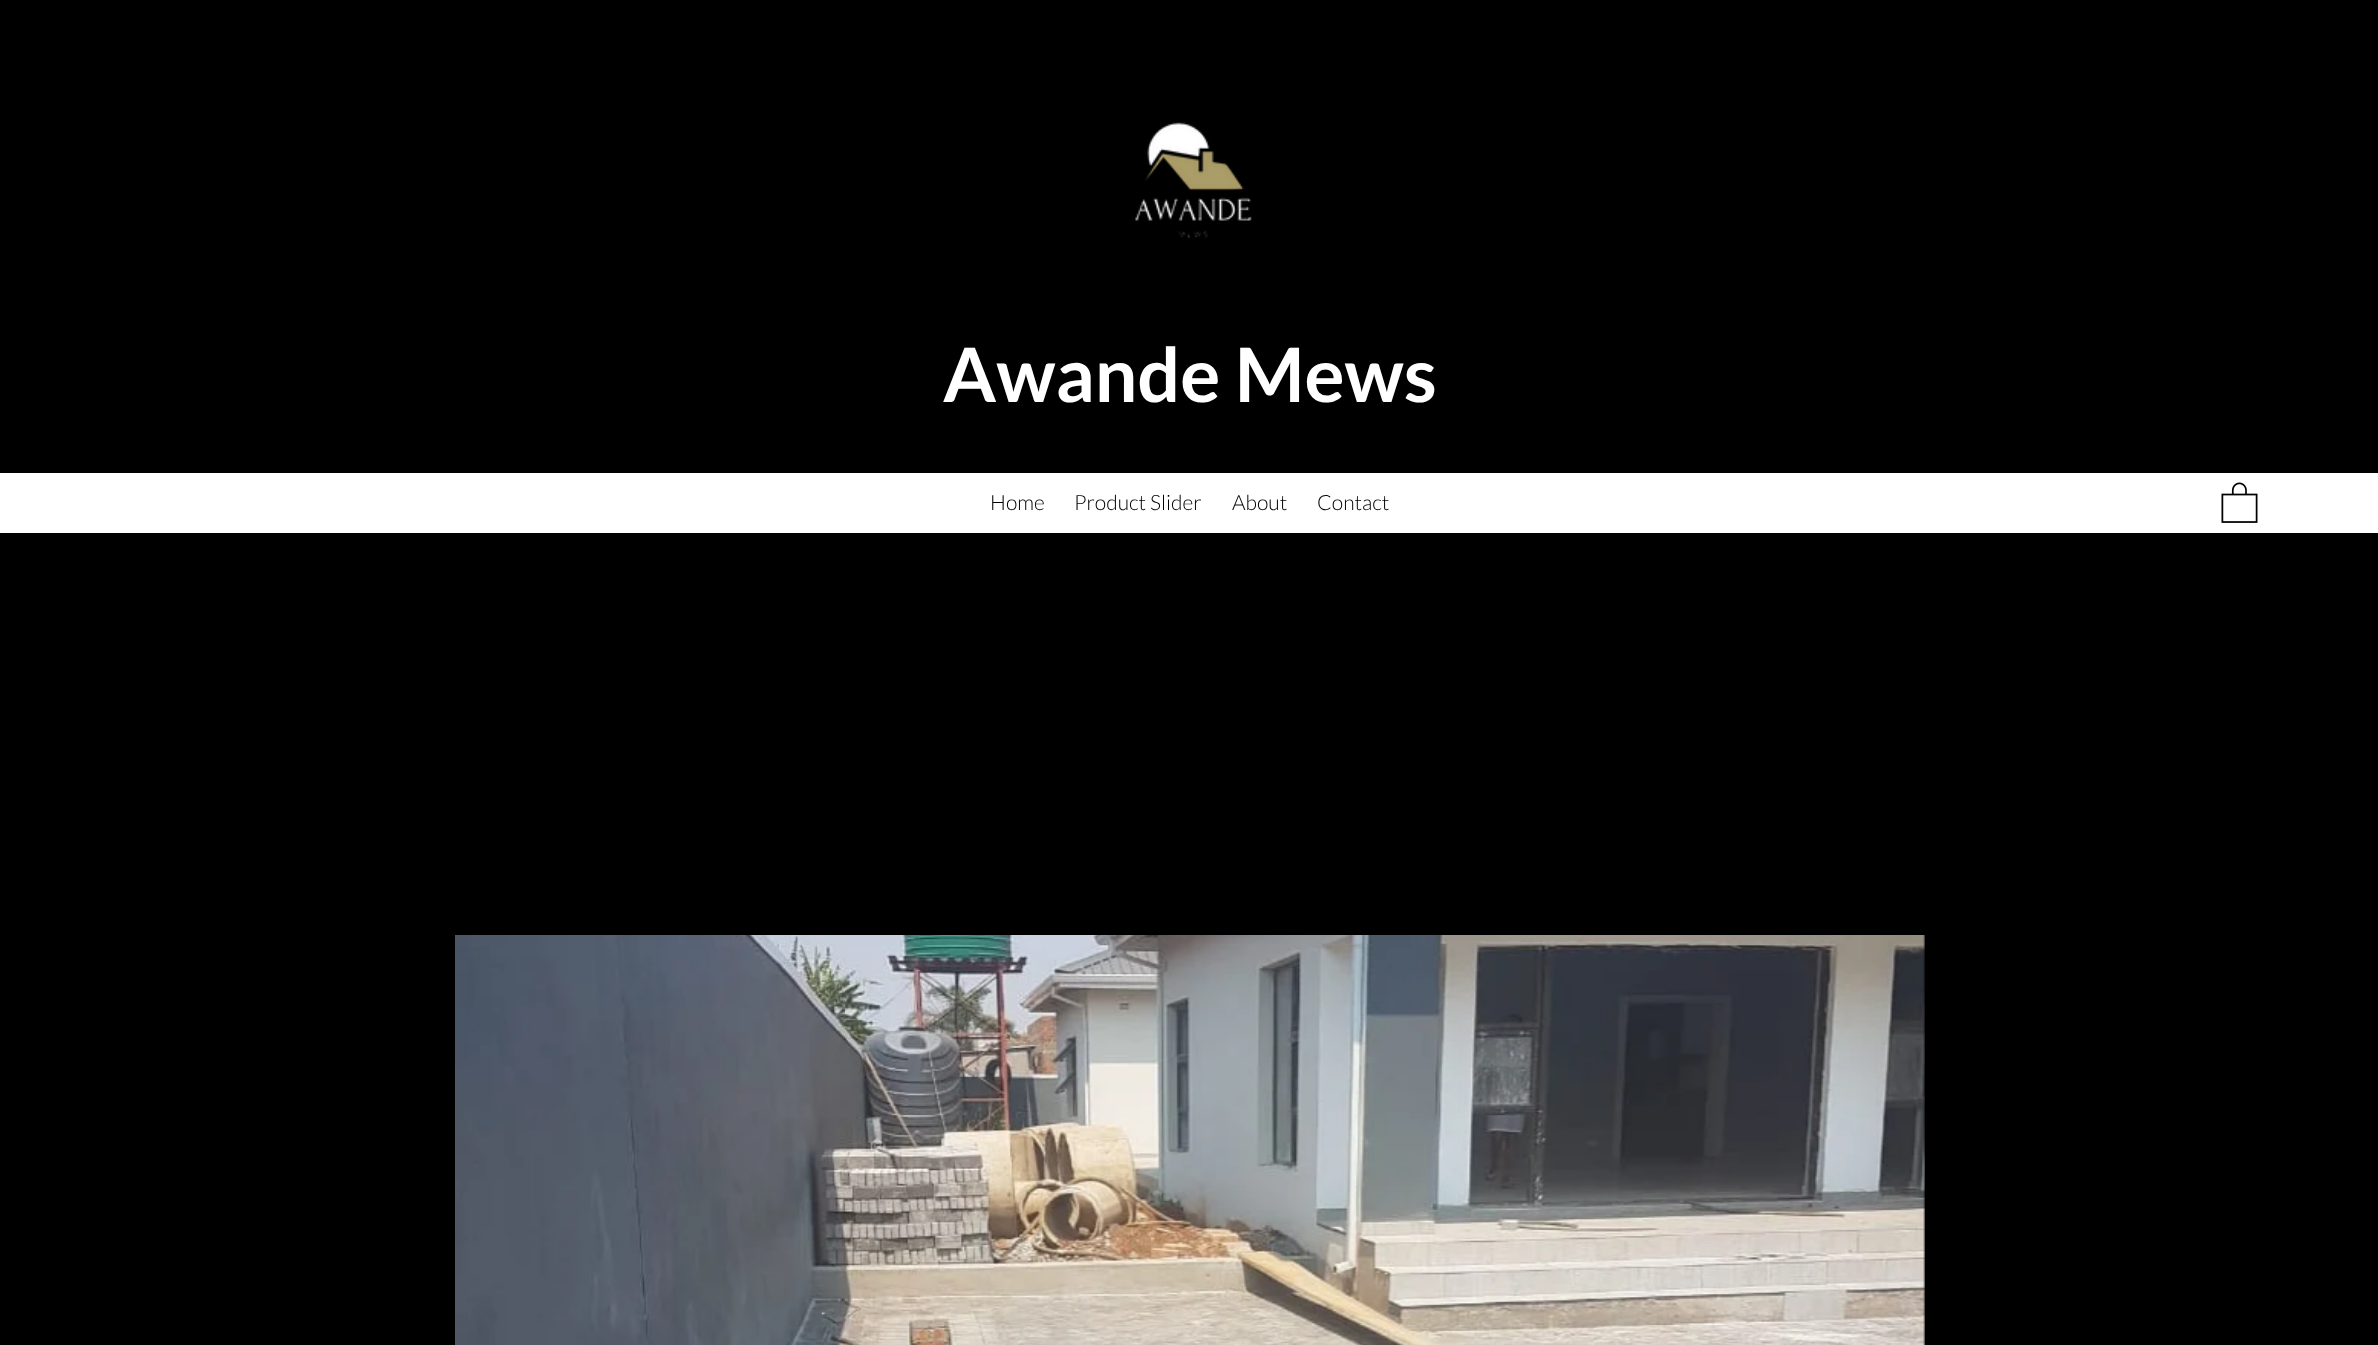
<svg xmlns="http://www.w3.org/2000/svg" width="2378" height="1345">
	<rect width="100%" height="100%" fill="#000000" />
	<image x="1135" y="122" width="117" height="117" href="assets/img1.png" />
	<text x="943" y="402" font-family="Lato" font-size="75" font-weight="700" fill="#FFFFFF">Awande Mews</text>
	<rect x="0" y="473" width="2378" height="60" fill="#FFFFFF" />
	<g font-family="Lato" font-size="21" font-weight="300" fill="#000000">
		<text x="990" y="510">Home</text>
		<text x="1074" y="510">Product Slider</text>
		<text x="1232" y="510">About</text>
		<text x="1317" y="510">Contact</text>
	</g>
	<image x="2221" y="482" width="37" height="41" href="assets/img2.png" />
	<image x="455" y="935" width="1470" height="410" href="assets/img3.png" />
</svg>
